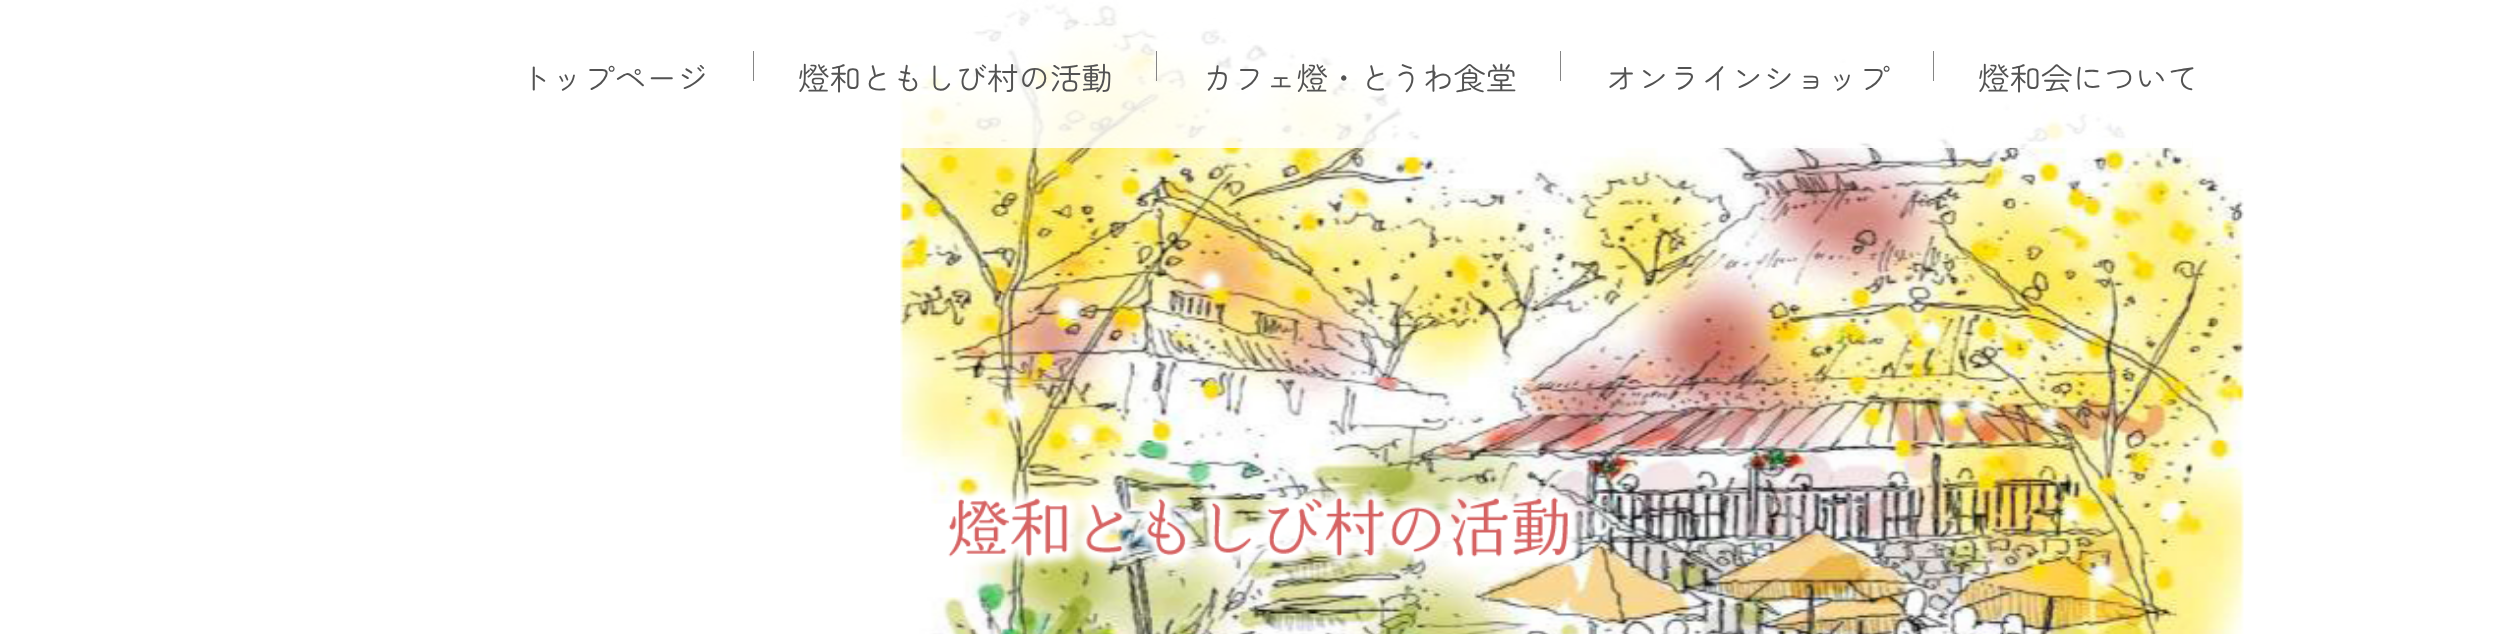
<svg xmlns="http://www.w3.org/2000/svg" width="2517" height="634">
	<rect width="100%" height="100%" fill="#FFFFFF" />
	<image x="900" y="0" width="1344" height="634" href="assets/img1.png" />
	<image x="948" y="484" width="635" height="88" href="assets/img2.png" />
	<rect x="900" y="0" width="1292" height="148" fill="#FFFFFF" fill-opacity="0.85" />
	<text x="520" y="90" font-family="Zen Maru Gothic" font-size="31.5" fill="#525252">トップページ</text>
	<rect x="753" y="51" width="1" height="30" fill="#858585" />
	<text x="798" y="90" font-family="Zen Maru Gothic" font-size="31.5" fill="#525252">燈和ともしび村の活動</text>
	<rect x="1156" y="51" width="1" height="30" fill="#707070" fill-opacity="0.85" />
	<text x="1202" y="90" font-family="Zen Maru Gothic" font-size="31.5" fill="#525252">カフェ燈・とうわ食堂</text>
	<rect x="1560" y="51" width="1" height="30" fill="#858585" />
	<text x="1606" y="90" font-family="Zen Maru Gothic" font-size="31.5" fill="#525252">オンラインショップ</text>
	<rect x="1933" y="51" width="1" height="30" fill="#858585" />
	<text x="1978" y="90" font-family="Zen Maru Gothic" font-size="31.5" fill="#525252">燈和会について</text>
</svg>
